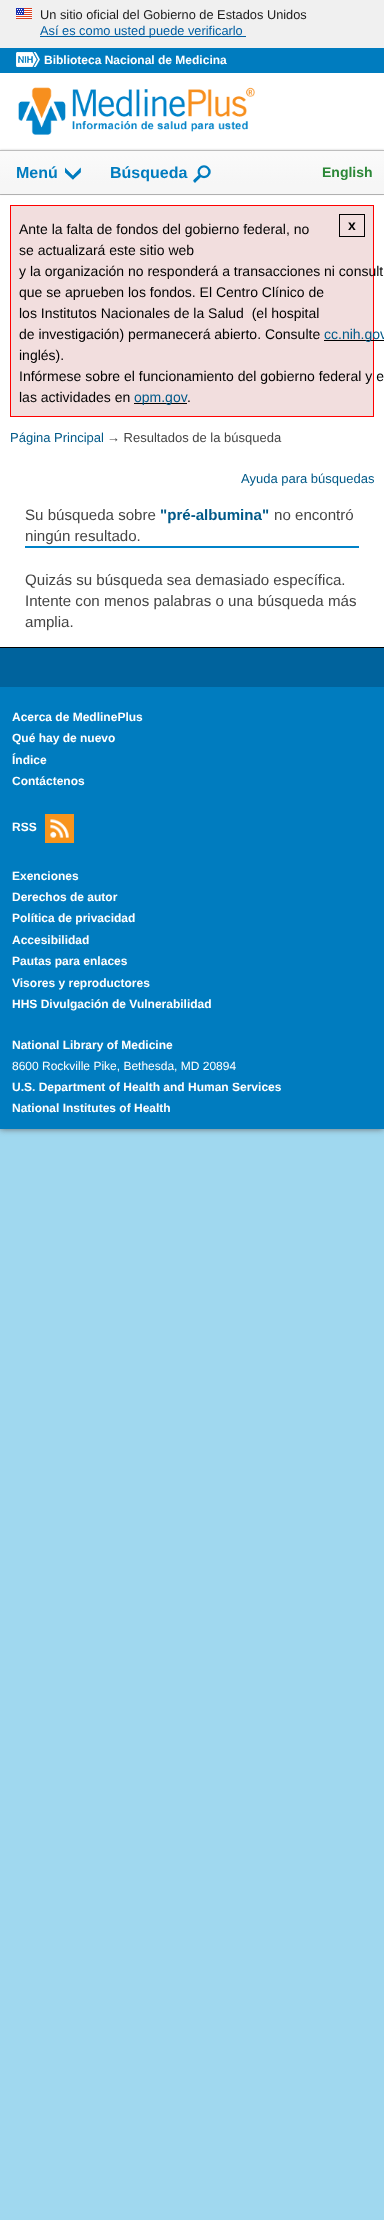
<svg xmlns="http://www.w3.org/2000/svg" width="384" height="2220">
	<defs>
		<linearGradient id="g1" gradientUnits="userSpaceOnUse" x1="192" y1="151" x2="192" y2="194"><stop offset="0.1" stop-color="#FAFAFA" /><stop offset="0.75" stop-color="#F6F6F6" /></linearGradient>
	</defs>
	<rect width="100%" height="100%" fill="#A0D8EF" />
	<rect x="0" y="48" width="384" height="1081" fill="#666666" filter="blur(3px)" />
	<rect x="0" y="0" width="384" height="48" fill="#F0F0F0" />
	<image x="16" y="8" width="16" height="11" href="assets/img1.png" />
	<text x="40" y="19" font-family="Liberation Sans" font-size="12.8" fill="#1B1B1B">Un sitio oficial del Gobierno de Estados Unidos</text>
	<rect x="40" y="36" width="206" height="1" fill="#005EA2" />
	<text x="40" y="35" font-family="Liberation Sans" font-size="12.8" fill="#005EA2">Así es como usted puede verificarlo</text>
	<rect x="0" y="73" width="384" height="574" fill="#FFFFFF" />
	<rect x="0" y="48" width="384" height="25" fill="#007CBF" />
	<image x="16" y="52" width="24" height="15" href="assets/img2.png" />
	<text x="44" y="64" font-family="Liberation Sans" font-size="12" font-weight="700" fill="#FFFFFF">Biblioteca Nacional de Medicina</text>
	<image x="18" y="87" width="237" height="48" href="assets/img3.png" />
	<rect x="0" y="194" width="384" height="1" fill="#BDBDBD" />
	<rect x="0" y="150" width="384" height="44" fill="#000000" fill-opacity="0.2" filter="blur(1px)" />
	<rect x="0" y="151" width="384" height="43" fill="url(#g1)" />
	<rect x="0" y="150" width="384" height="1" fill="#BDBDBD" />
	<text x="16" y="178" font-family="Liberation Sans" font-size="16" font-weight="700" fill="#007CBF">Menú</text>
	<image x="65" y="167" width="16" height="13" href="assets/img4.png" />
	<text x="110" y="178" font-family="Liberation Sans" font-size="16" font-weight="700" fill="#007CBF">Búsqueda</text>
	<image x="193" y="165" width="18" height="18" href="assets/img5.png" />
	<text x="322" y="177" font-family="Liberation Sans" font-size="14" font-weight="700" fill="#2B8737">English</text>
	<rect x="10.5" y="205.5" width="363" height="211" fill="#F2DEDE" stroke="#FF0000" />
	<rect x="339.5" y="214.5" width="25" height="22" fill="none" stroke="#000000" />
	<text x="348" y="230" font-family="Liberation Sans" font-size="14" font-weight="700" fill="#000000">x</text>
	<g font-family="Liberation Sans" font-size="14" fill="#000000">
		<text x="19" y="234">Ante la falta de fondos del gobierno federal, no</text>
		<text x="19" y="255">se actualizará este sitio web</text>
		<text x="19" y="276">y la organización no responderá a transacciones ni consult</text>
		<text x="19" y="297">que se aprueben los fondos. El Centro Clínico de</text>
		<text x="19" y="318" xml:space="preserve">los Institutos Nacionales de la Salud  (el hospital</text>
		<text x="19" y="339">de investigación) permanecerá abierto. Consulte</text>
	</g>
	<rect x="324" y="340" width="60" height="1" fill="#000000" />
	<text x="324" y="339" font-family="Liberation Sans" font-size="14" fill="#005988">cc.nih.gov</text>
	<g font-family="Liberation Sans" font-size="14" fill="#000000">
		<text x="19" y="360">inglés).</text>
		<text x="19" y="381">Infórmese sobre el funcionamiento del gobierno federal y e</text>
		<text x="19" y="402">las actividades en</text>
	</g>
	<rect x="134" y="403" width="53" height="1" fill="#000000" />
	<text x="134" y="402" font-family="Liberation Sans" font-size="14" fill="#005988">opm.gov</text>
	<text x="187" y="402" font-family="Liberation Sans" font-size="14" fill="#000000">.</text>
	<text x="10" y="442" font-family="Liberation Sans" font-size="13" fill="#005988">Página Principal</text>
	<text x="107" y="442" font-family="Liberation Sans" font-size="13" fill="#444444">→ Resultados de la búsqueda</text>
	<text x="241" y="483" font-family="Liberation Sans" font-size="13" fill="#005988">Ayuda para búsquedas</text>
	<rect x="25" y="546" width="334" height="2" fill="#0082C8" />
	<text x="25" y="520" font-family="Liberation Sans" font-size="15.1" fill="#444444">Su búsqueda sobre</text>
	<text x="160" y="520" font-family="Liberation Sans" font-size="15.1" font-weight="700" fill="#005988">"pré-albumina"</text>
	<g font-family="Liberation Sans" font-size="15.1" fill="#444444">
		<text x="274" y="520">no encontró</text>
		<text x="25" y="541">ningún resultado.</text>
		<text x="25" y="585">Quizás su búsqueda sea demasiado específica.</text>
		<text x="25" y="606">Intente con menos palabras o una búsqueda más</text>
		<text x="25" y="627">amplia.</text>
	</g>
	<rect x="0" y="687" width="384" height="442" fill="#007CBF" />
	<rect x="0" y="647" width="384" height="1" fill="#000000" />
	<rect x="0" y="648" width="384" height="39" fill="#00639D" />
	<g font-family="Liberation Sans" font-size="12" font-weight="700" fill="#FFFFFF">
		<text x="12" y="721">Acerca de MedlinePlus</text>
		<text x="12" y="742">Qué hay de nuevo</text>
		<text x="12" y="764">Índice</text>
		<text x="12" y="785">Contáctenos</text>
		<text x="12" y="831">RSS</text>
	</g>
	<image x="45" y="814" width="29" height="29" href="assets/img6.png" />
	<g font-family="Liberation Sans" font-size="12" font-weight="700" fill="#FFFFFF">
		<text x="12" y="880">Exenciones</text>
		<text x="12" y="901">Derechos de autor</text>
		<text x="12" y="922">Política de privacidad</text>
		<text x="12" y="944">Accesibilidad</text>
		<text x="12" y="965">Pautas para enlaces</text>
		<text x="12" y="987">Visores y reproductores</text>
		<text x="12" y="1008">HHS Divulgación de Vulnerabilidad</text>
		<text x="12" y="1049">National Library of Medicine</text>
	</g>
	<text x="12" y="1070" font-family="Liberation Sans" font-size="12" fill="#FFFFFF">8600 Rockville Pike, Bethesda, MD 20894</text>
	<g font-family="Liberation Sans" font-size="12" font-weight="700" fill="#FFFFFF">
		<text x="12" y="1091">U.S. Department of Health and Human Services</text>
		<text x="12" y="1112">National Institutes of Health</text>
	</g>
</svg>
